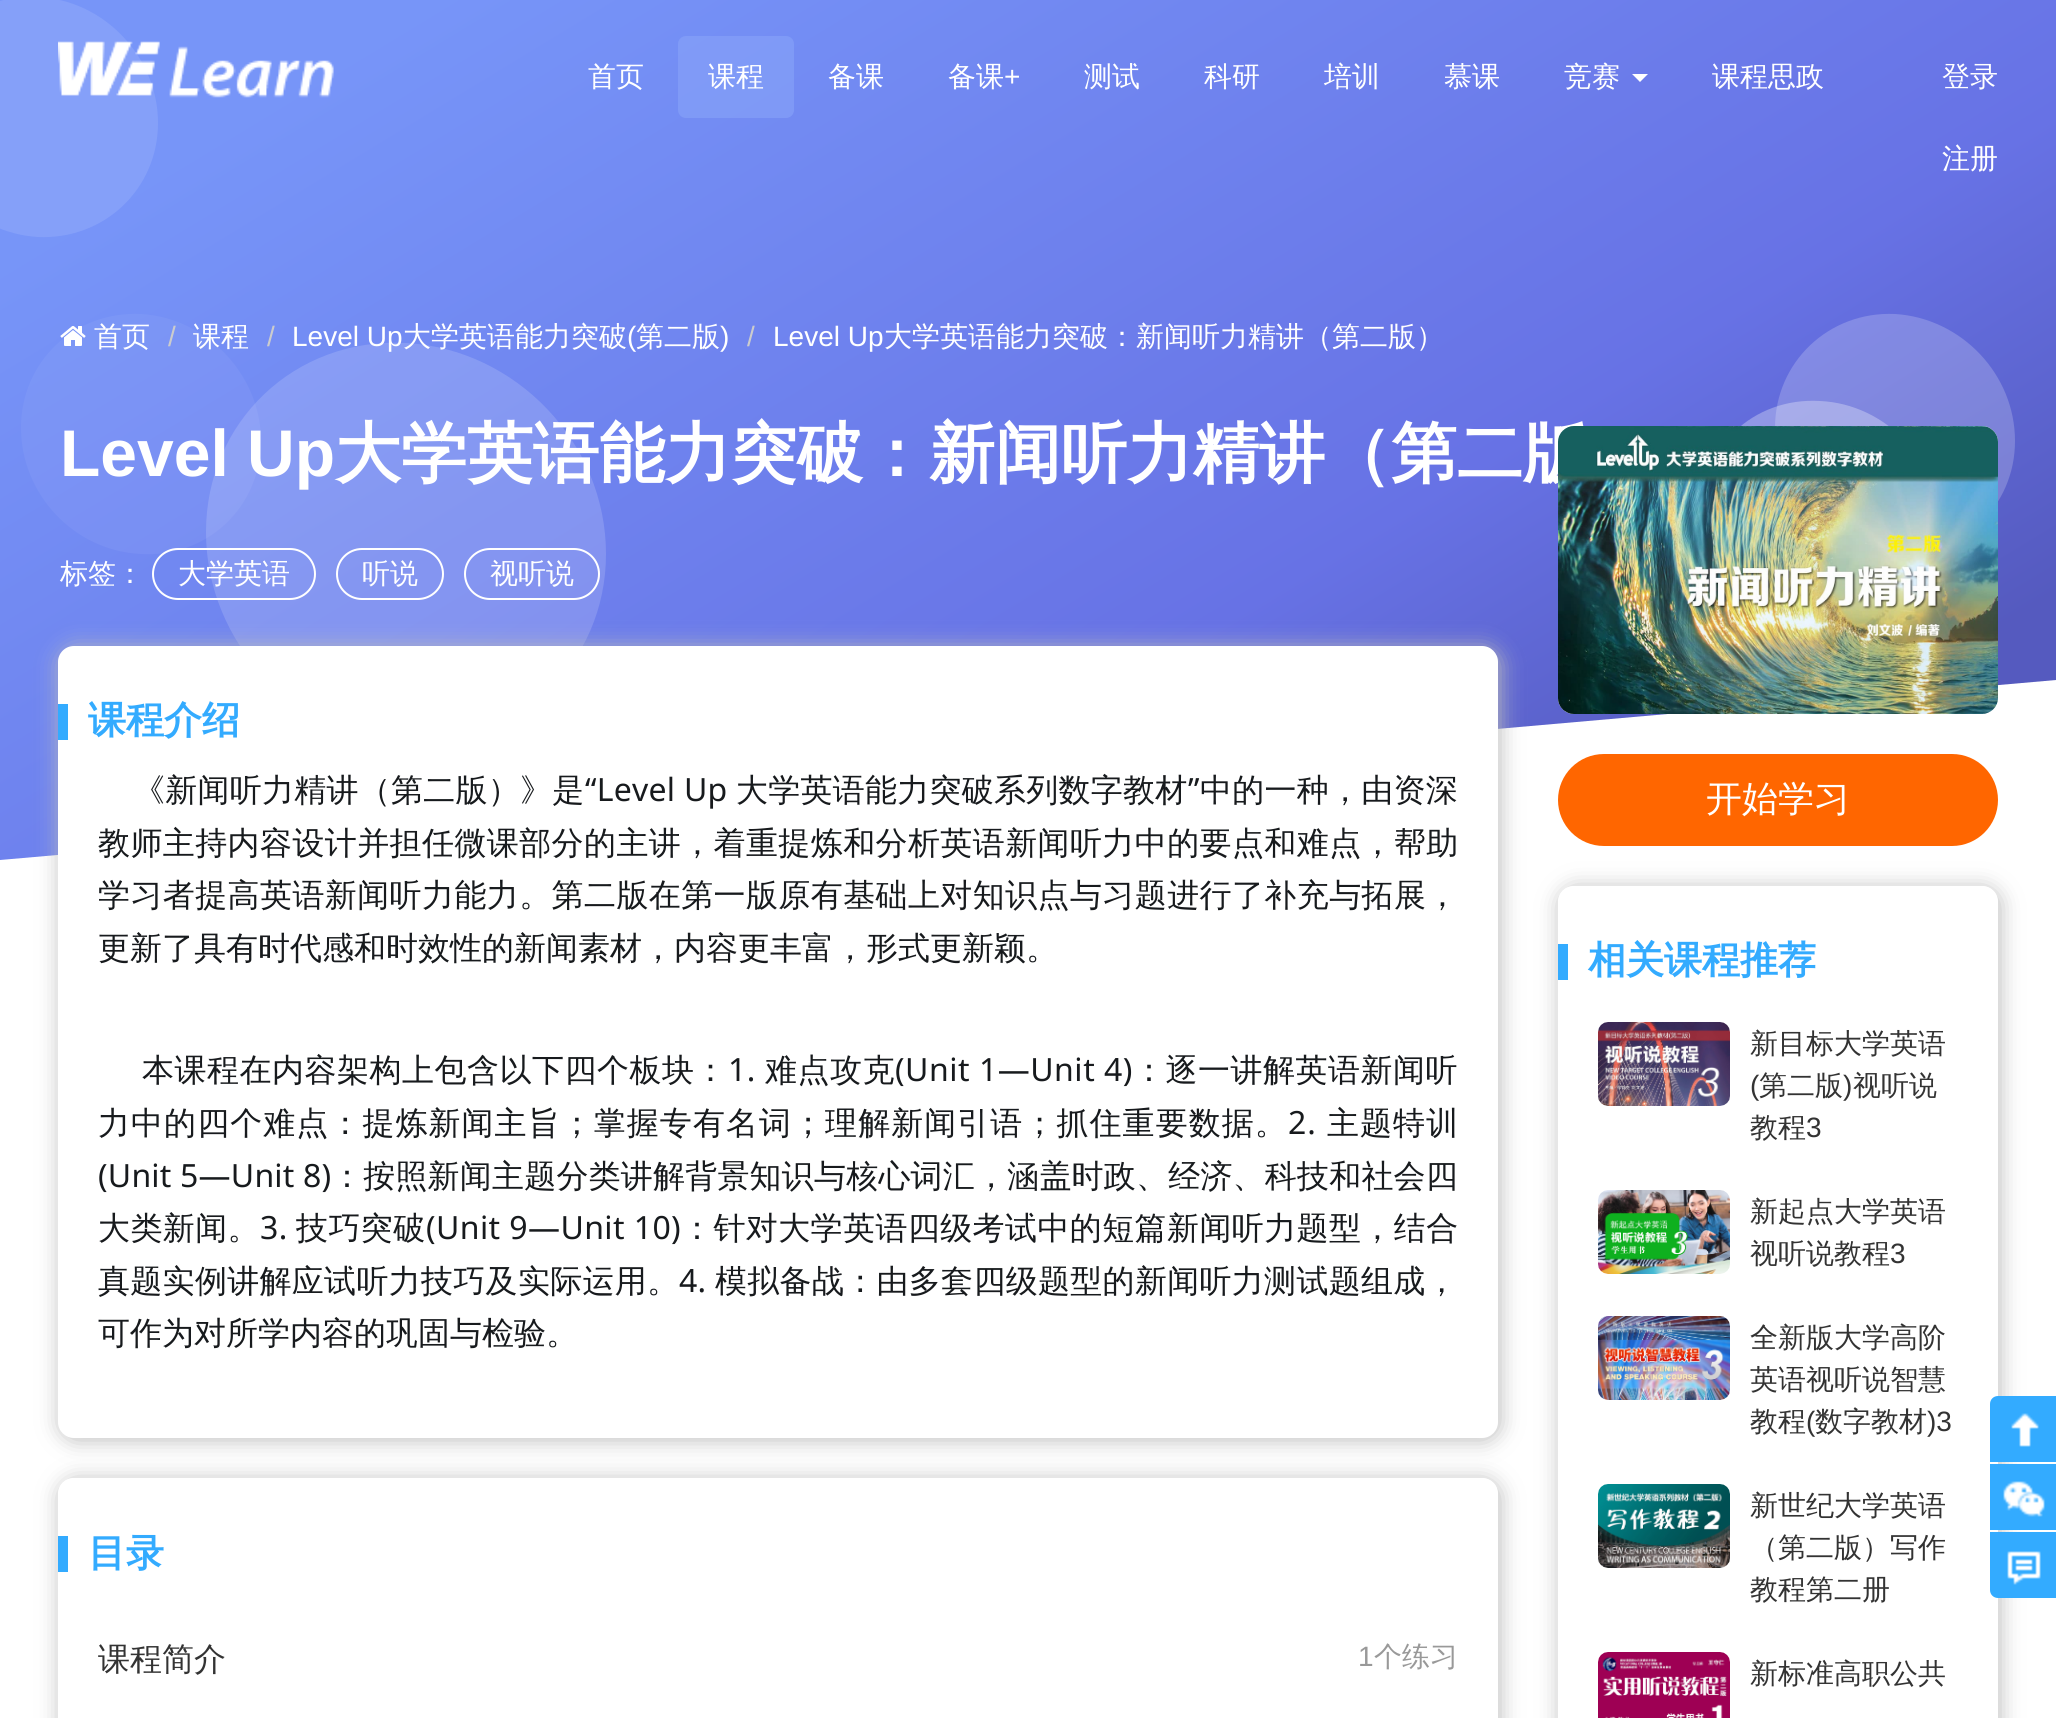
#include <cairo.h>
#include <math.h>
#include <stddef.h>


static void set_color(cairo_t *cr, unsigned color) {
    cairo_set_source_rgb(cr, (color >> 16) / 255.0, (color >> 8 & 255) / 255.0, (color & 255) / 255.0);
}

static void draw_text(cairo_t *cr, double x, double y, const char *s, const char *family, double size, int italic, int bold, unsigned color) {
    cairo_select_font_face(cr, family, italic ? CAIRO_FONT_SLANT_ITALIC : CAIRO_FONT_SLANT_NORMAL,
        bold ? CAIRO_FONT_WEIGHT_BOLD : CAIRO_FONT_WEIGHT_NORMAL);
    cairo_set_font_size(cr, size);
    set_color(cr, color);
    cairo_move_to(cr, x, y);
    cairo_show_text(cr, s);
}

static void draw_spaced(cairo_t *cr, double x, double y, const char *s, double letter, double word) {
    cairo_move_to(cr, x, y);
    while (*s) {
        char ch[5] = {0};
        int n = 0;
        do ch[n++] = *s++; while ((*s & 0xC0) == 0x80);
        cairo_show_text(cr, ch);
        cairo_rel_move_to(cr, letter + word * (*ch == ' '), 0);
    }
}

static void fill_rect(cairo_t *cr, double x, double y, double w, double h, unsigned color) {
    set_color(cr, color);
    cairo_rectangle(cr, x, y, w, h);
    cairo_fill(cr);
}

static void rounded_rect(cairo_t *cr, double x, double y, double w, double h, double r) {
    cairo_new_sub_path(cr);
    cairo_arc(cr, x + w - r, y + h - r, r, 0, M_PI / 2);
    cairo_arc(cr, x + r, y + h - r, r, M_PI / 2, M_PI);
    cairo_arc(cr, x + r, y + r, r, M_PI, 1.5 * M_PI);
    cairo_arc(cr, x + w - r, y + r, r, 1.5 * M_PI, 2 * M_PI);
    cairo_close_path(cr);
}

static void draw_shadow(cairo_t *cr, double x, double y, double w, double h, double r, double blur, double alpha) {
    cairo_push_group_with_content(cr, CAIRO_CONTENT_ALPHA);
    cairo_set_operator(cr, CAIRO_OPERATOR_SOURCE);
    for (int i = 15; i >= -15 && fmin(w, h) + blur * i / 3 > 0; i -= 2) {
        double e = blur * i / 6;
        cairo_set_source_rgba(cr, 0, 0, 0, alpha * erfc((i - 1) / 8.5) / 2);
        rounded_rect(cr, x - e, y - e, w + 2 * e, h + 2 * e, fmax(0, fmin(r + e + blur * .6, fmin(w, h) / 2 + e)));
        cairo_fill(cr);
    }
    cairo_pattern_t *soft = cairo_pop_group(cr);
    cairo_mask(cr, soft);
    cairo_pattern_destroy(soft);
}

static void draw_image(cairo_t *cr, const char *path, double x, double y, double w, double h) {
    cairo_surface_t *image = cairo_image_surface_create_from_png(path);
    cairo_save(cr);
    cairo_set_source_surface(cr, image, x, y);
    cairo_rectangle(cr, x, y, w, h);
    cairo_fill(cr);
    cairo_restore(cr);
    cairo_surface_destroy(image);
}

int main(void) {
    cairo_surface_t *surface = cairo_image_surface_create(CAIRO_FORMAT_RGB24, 2056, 1718);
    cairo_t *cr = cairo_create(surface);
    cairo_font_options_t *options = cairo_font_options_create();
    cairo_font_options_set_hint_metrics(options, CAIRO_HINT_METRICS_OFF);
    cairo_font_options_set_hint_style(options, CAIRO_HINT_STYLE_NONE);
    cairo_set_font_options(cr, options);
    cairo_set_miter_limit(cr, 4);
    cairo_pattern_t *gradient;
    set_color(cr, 0xFFFFFF);
    cairo_paint(cr);
    gradient = cairo_pattern_create_linear(585, -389, 1471, 1069);
    cairo_pattern_add_color_stop_rgba(gradient, 0.15, 0.467, 0.584, 0.973, 1);
    cairo_pattern_add_color_stop_rgba(gradient, 0.7, 0.404, 0.447, 0.898, 1);
    cairo_pattern_add_color_stop_rgba(gradient, 0.94, 0.333, 0.353, 0.749, 1);
    cairo_set_source(cr, gradient);
    cairo_pattern_destroy(gradient);
    cairo_new_path(cr);
    cairo_move_to(cr, 0, 0);
    cairo_line_to(cr, 2056, -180);
    cairo_line_to(cr, 2056, 680);
    cairo_line_to(cr, 0, 860);
    cairo_close_path(cr);
    cairo_fill(cr);
    set_color(cr, 0x85A0F9);
    cairo_new_path(cr);
    cairo_move_to(cr, 38, -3);
    cairo_curve_to(cr, 104, 0, 158, 57, 158, 123);
    cairo_curve_to(cr, 158, 189, 104, 240, 38, 237);
    cairo_curve_to(cr, -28, 233, -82, 177, -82, 110);
    cairo_curve_to(cr, -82, 44, -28, -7, 38, -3);
    cairo_close_path(cr);
    cairo_fill(cr);
    cairo_set_source_rgba(cr, 1, 1, 1, 0.05);
    cairo_new_path(cr);
    cairo_move_to(cr, 141, 314);
    cairo_curve_to(cr, 207, 318, 261, 375, 261, 441);
    cairo_curve_to(cr, 261, 507, 207, 558, 141, 554);
    cairo_curve_to(cr, 74, 551, 21, 494, 21, 428);
    cairo_curve_to(cr, 21, 362, 74, 311, 141, 314);
    cairo_close_path(cr);
    cairo_fill(cr);
    cairo_set_source_rgba(cr, 1, 1, 1, 0.15);
    cairo_new_path(cr);
    cairo_move_to(cr, 406, 343);
    cairo_curve_to(cr, 516, 349, 606, 443, 606, 554);
    cairo_curve_to(cr, 606, 664, 516, 749, 406, 743);
    cairo_curve_to(cr, 295, 737, 206, 643, 206, 532);
    cairo_curve_to(cr, 206, 422, 295, 337, 406, 343);
    cairo_close_path(cr);
    cairo_fill(cr);
    cairo_set_source_rgba(cr, 1, 1, 1, 0.3);
    cairo_new_path(cr);
    cairo_move_to(cr, 1820, 401);
    cairo_curve_to(cr, 1886, 404, 1940, 461, 1940, 527);
    cairo_curve_to(cr, 1940, 593, 1886, 644, 1820, 641);
    cairo_curve_to(cr, 1753, 637, 1700, 581, 1700, 514);
    cairo_curve_to(cr, 1700, 448, 1753, 397, 1820, 401);
    cairo_close_path(cr);
    cairo_fill(cr);
    cairo_set_source_rgba(cr, 1, 1, 1, 0.2);
    cairo_new_path(cr);
    cairo_move_to(cr, 1895, 314);
    cairo_curve_to(cr, 1961, 318, 2015, 374, 2015, 441);
    cairo_curve_to(cr, 2015, 507, 1961, 558, 1895, 554);
    cairo_curve_to(cr, 1829, 551, 1775, 494, 1775, 428);
    cairo_curve_to(cr, 1775, 362, 1829, 311, 1895, 314);
    cairo_close_path(cr);
    cairo_fill(cr);
    draw_image(cr, "assets/img1.png", 58, 41, 276, 57);
    draw_text(cr, 588, 86, "首页", "WenQuanYi Zen Hei Medium", 28, 0, 0, 0xFFFFFF);
    cairo_set_source_rgba(cr, 0.522, 0.627, 0.976, 0.7);
    rounded_rect(cr, 678, 36, 116, 82, 8);
    cairo_fill(cr);
    draw_text(cr, 708, 86, "课程", "WenQuanYi Zen Hei Medium", 28, 0, 0, 0xFFFFFF);
    draw_text(cr, 828, 86, "备课", "WenQuanYi Zen Hei Medium", 28, 0, 0, 0xFFFFFF);
    draw_text(cr, 948, 86, "备课", "WenQuanYi Zen Hei Medium", 28, 0, 0, 0xFFFFFF);
    draw_text(cr, 1004, 86, "+", "Liberation Sans", 28, 0, 0, 0xFFFFFF);
    draw_text(cr, 1084, 86, "测试", "WenQuanYi Zen Hei Medium", 28, 0, 0, 0xFFFFFF);
    draw_text(cr, 1204, 86, "科研", "WenQuanYi Zen Hei Medium", 28, 0, 0, 0xFFFFFF);
    draw_text(cr, 1324, 86, "培训", "WenQuanYi Zen Hei Medium", 28, 0, 0, 0xFFFFFF);
    draw_text(cr, 1444, 86, "慕课", "WenQuanYi Zen Hei Medium", 28, 0, 0, 0xFFFFFF);
    draw_text(cr, 1564, 86, "竞赛", "WenQuanYi Zen Hei Medium", 28, 0, 0, 0xFFFFFF);
    cairo_new_path(cr);
    cairo_move_to(cr, 1632, 74);
    cairo_line_to(cr, 1648, 74);
    cairo_line_to(cr, 1640, 82);
    cairo_close_path(cr);
    cairo_fill(cr);
    draw_text(cr, 1712, 86, "课程思政", "WenQuanYi Zen Hei Medium", 28, 0, 0, 0xFFFFFF);
    draw_text(cr, 1942, 86, "登录", "WenQuanYi Zen Hei Medium", 28, 0, 0, 0xFFFFFF);
    draw_text(cr, 1942, 168, "注册", "WenQuanYi Zen Hei Medium", 28, 0, 0, 0xFFFFFF);
    draw_image(cr, "assets/img2.png", 60, 326, 26, 20);
    draw_text(cr, 94, 346, "首页", "WenQuanYi Zen Hei Medium", 28, 0, 0, 0xFFFFFF);
    draw_text(cr, 168, 346, "/", "Liberation Sans", 28, 0, 0, 0xCCCCCC);
    draw_text(cr, 193, 346, "课程", "WenQuanYi Zen Hei Medium", 28, 0, 0, 0xFFFFFF);
    draw_text(cr, 267, 346, "/", "Liberation Sans", 28, 0, 0, 0xCCCCCC);
    draw_text(cr, 292, 346, "Level Up", "Liberation Sans", 28, 0, 0, 0xFFFFFF);
    draw_text(cr, 403, 346, "大学英语能力突破", "WenQuanYi Zen Hei Medium", 28, 0, 0, 0xFFFFFF);
    draw_text(cr, 627, 346, "(", "Liberation Sans", 28, 0, 0, 0xFFFFFF);
    draw_text(cr, 636, 346, "第二版", "WenQuanYi Zen Hei Medium", 28, 0, 0, 0xFFFFFF);
    draw_text(cr, 720, 346, ")", "Liberation Sans", 28, 0, 0, 0xFFFFFF);
    draw_text(cr, 747, 346, "/", "Liberation Sans", 28, 0, 0, 0xCCCCCC);
    draw_text(cr, 773, 346, "Level Up", "Liberation Sans", 28, 0, 0, 0xFFFFFF);
    draw_text(cr, 884, 346, "大学英语能力突破：新闻听力精讲（第二版）", "WenQuanYi Zen Hei Medium", 28, 0, 0, 0xFFFFFF);
    draw_text(cr, 60, 476, "Level Up", "Liberation Sans", 66, 0, 1, 0xFFFFFF);
    draw_text(cr, 335, 476, "大学英语能力突破：新闻听力精讲（第二版", "WenQuanYi Zen Hei", 66, 0, 1, 0xFFFFFF);
    draw_text(cr, 60, 583, "标签：", "WenQuanYi Zen Hei Medium", 28, 0, 0, 0xFFFFFF);
    rounded_rect(cr, 153, 549, 162, 50, 25);
    cairo_stroke(cr);
    draw_text(cr, 178, 583, "大学英语", "WenQuanYi Zen Hei Medium", 28, 0, 0, 0xFFFFFF);
    rounded_rect(cr, 337, 549, 106, 50, 25);
    cairo_stroke(cr);
    draw_text(cr, 362, 583, "听说", "WenQuanYi Zen Hei Medium", 28, 0, 0, 0xFFFFFF);
    rounded_rect(cr, 465, 549, 134, 50, 25);
    cairo_stroke(cr);
    draw_text(cr, 490, 583, "视听说", "WenQuanYi Zen Hei Medium", 28, 0, 0, 0xFFFFFF);
    set_color(cr, 0xBBBBBB);
    draw_shadow(cr, 60, 648, 1440, 792, 16, 11, 1);
    set_color(cr, 0xFFFFFF);
    rounded_rect(cr, 58, 646, 1440, 792, 16);
    cairo_fill(cr);
    fill_rect(cr, 58, 704, 10, 36, 0x33ABFF);
    draw_text(cr, 88, 733, "课程介绍", "WenQuanYi Zen Hei", 38, 0, 1, 0x33ABFF);
    cairo_select_font_face(cr, "WenQuanYi Zen Hei Medium", CAIRO_FONT_SLANT_NORMAL, CAIRO_FONT_WEIGHT_NORMAL);
    cairo_set_font_size(cr, 32);
    set_color(cr, 0x171A1D);
    draw_spaced(cr, 133, 801, "《新闻听力精讲（第二版）》是", 0.25, 0);
    cairo_select_font_face(cr, "Noto Sans", CAIRO_FONT_SLANT_NORMAL, CAIRO_FONT_WEIGHT_NORMAL);
    draw_spaced(cr, 585, 801, "“Level Up", 0.25, 0);
    cairo_select_font_face(cr, "WenQuanYi Zen Hei Medium", CAIRO_FONT_SLANT_NORMAL, CAIRO_FONT_WEIGHT_NORMAL);
    draw_spaced(cr, 736, 801, "大学英语能力突破系列数字教材", 0.25, 0);
    cairo_select_font_face(cr, "Noto Sans", CAIRO_FONT_SLANT_NORMAL, CAIRO_FONT_WEIGHT_NORMAL);
    draw_spaced(cr, 1188, 801, "”", 0.25, 0);
    cairo_select_font_face(cr, "WenQuanYi Zen Hei Medium", CAIRO_FONT_SLANT_NORMAL, CAIRO_FONT_WEIGHT_NORMAL);
    draw_spaced(cr, 1200, 801, "中的一种，由资深", 0.25, 0);
    draw_spaced(cr, 98, 854, "教师主持内容设计并担任微课部分的主讲，着重提炼和分析英语新闻听力中的要点和难点，帮助", 0.4, 0);
    draw_spaced(cr, 98, 906, "学习者提高英语新闻听力能力。第二版在第一版原有基础上对知识点与习题进行了补充与拓展，", 0.4, 0);
    draw_text(cr, 98, 959, "更新了具有时代感和时效性的新闻素材，内容更丰富，形式更新颖。", "WenQuanYi Zen Hei Medium", 32, 0, 0, 0x171A1D);
    draw_spaced(cr, 142, 1081, "本课程在内容架构上包含以下四个板块：", 0.5, 0);
    cairo_select_font_face(cr, "Noto Sans", CAIRO_FONT_SLANT_NORMAL, CAIRO_FONT_WEIGHT_NORMAL);
    draw_spaced(cr, 728, 1081, "1.", 0.5, 0);
    cairo_select_font_face(cr, "WenQuanYi Zen Hei Medium", CAIRO_FONT_SLANT_NORMAL, CAIRO_FONT_WEIGHT_NORMAL);
    draw_spaced(cr, 765, 1081, "难点攻克", 0.5, 0);
    cairo_select_font_face(cr, "Noto Sans", CAIRO_FONT_SLANT_NORMAL, CAIRO_FONT_WEIGHT_NORMAL);
    draw_spaced(cr, 895, 1081, "(Unit 1—Unit 4)", 0.5, 0);
    cairo_select_font_face(cr, "WenQuanYi Zen Hei Medium", CAIRO_FONT_SLANT_NORMAL, CAIRO_FONT_WEIGHT_NORMAL);
    draw_spaced(cr, 1133, 1081, "：逐一讲解英语新闻听", 0.5, 0);
    draw_spaced(cr, 98, 1134, "力中的四个难点：提炼新闻主旨；掌握专有名词；理解新闻引语；抓住重要数据。", 1.05, 0);
    cairo_select_font_face(cr, "Noto Sans", CAIRO_FONT_SLANT_NORMAL, CAIRO_FONT_WEIGHT_NORMAL);
    draw_spaced(cr, 1288, 1134, "2.", 1.05, 0);
    cairo_select_font_face(cr, "WenQuanYi Zen Hei Medium", CAIRO_FONT_SLANT_NORMAL, CAIRO_FONT_WEIGHT_NORMAL);
    draw_spaced(cr, 1327, 1134, "主题特训", 1.05, 0);
    cairo_select_font_face(cr, "Noto Sans", CAIRO_FONT_SLANT_NORMAL, CAIRO_FONT_WEIGHT_NORMAL);
    draw_spaced(cr, 98, 1187, "(Unit 5—Unit 8)", 0.2, 0);
    cairo_select_font_face(cr, "WenQuanYi Zen Hei Medium", CAIRO_FONT_SLANT_NORMAL, CAIRO_FONT_WEIGHT_NORMAL);
    draw_spaced(cr, 331, 1187, "：按照新闻主题分类讲解背景知识与核心词汇，涵盖时政、经济、科技和社会四", 0.2, 0);
    draw_spaced(cr, 98, 1239, "大类新闻。", 0.4, 0);
    cairo_select_font_face(cr, "Noto Sans", CAIRO_FONT_SLANT_NORMAL, CAIRO_FONT_WEIGHT_NORMAL);
    draw_spaced(cr, 260, 1239, "3.", 0.4, 0);
    cairo_select_font_face(cr, "WenQuanYi Zen Hei Medium", CAIRO_FONT_SLANT_NORMAL, CAIRO_FONT_WEIGHT_NORMAL);
    draw_spaced(cr, 296, 1239, "技巧突破", 0.4, 0);
    cairo_select_font_face(cr, "Noto Sans", CAIRO_FONT_SLANT_NORMAL, CAIRO_FONT_WEIGHT_NORMAL);
    draw_spaced(cr, 426, 1239, "(Unit 9—Unit 10)", 0.4, 0);
    cairo_select_font_face(cr, "WenQuanYi Zen Hei Medium", CAIRO_FONT_SLANT_NORMAL, CAIRO_FONT_WEIGHT_NORMAL);
    draw_spaced(cr, 681, 1239, "：针对大学英语四级考试中的短篇新闻听力题型，结合", 0.4, 0);
    draw_spaced(cr, 98, 1292, "真题实例讲解应试听力技巧及实际运用。", 0.3, 0);
    cairo_select_font_face(cr, "Noto Sans", CAIRO_FONT_SLANT_NORMAL, CAIRO_FONT_WEIGHT_NORMAL);
    draw_spaced(cr, 679, 1292, "4.", 0.3, 0);
    cairo_select_font_face(cr, "WenQuanYi Zen Hei Medium", CAIRO_FONT_SLANT_NORMAL, CAIRO_FONT_WEIGHT_NORMAL);
    draw_spaced(cr, 715, 1292, "模拟备战：由多套四级题型的新闻听力测试题组成，", 0.3, 0);
    draw_text(cr, 98, 1344, "可作为对所学内容的巩固与检验。", "WenQuanYi Zen Hei Medium", 32, 0, 0, 0x171A1D);
    cairo_save(cr);
    cairo_set_fill_rule(cr, CAIRO_FILL_RULE_EVEN_ODD);
    cairo_new_path(cr);
    cairo_move_to(cr, 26, 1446);
    cairo_line_to(cr, 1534, 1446);
    cairo_line_to(cr, 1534, 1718);
    cairo_line_to(cr, 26, 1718);
    cairo_close_path(cr);
    cairo_move_to(cr, 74, 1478);
    cairo_line_to(cr, 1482, 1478);
    cairo_curve_to(cr, 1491, 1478, 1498, 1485, 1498, 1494);
    cairo_line_to(cr, 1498, 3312);
    cairo_curve_to(cr, 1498, 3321, 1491, 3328, 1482, 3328);
    cairo_line_to(cr, 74, 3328);
    cairo_curve_to(cr, 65, 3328, 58, 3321, 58, 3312);
    cairo_line_to(cr, 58, 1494);
    cairo_curve_to(cr, 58, 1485, 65, 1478, 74, 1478);
    cairo_close_path(cr);
    cairo_clip(cr);
    set_color(cr, 0xBBBBBB);
    draw_shadow(cr, 60, 1480, 1440, 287, 16, 11, 1);
    cairo_restore(cr);
    fill_rect(cr, 58, 1536, 10, 36, 0x33ABFF);
    draw_text(cr, 88, 1566, "目录", "WenQuanYi Zen Hei", 38, 0, 1, 0x33ABFF);
    draw_text(cr, 98, 1670, "课程简介", "WenQuanYi Zen Hei Medium", 32, 0, 0, 0x333333);
    draw_text(cr, 1358, 1666, "1", "Liberation Sans", 28, 0, 0, 0x999999);
    draw_text(cr, 1374, 1666, "个练习", "WenQuanYi Zen Hei Medium", 28, 0, 0, 0x999999);
    set_color(cr, 0xFFFFFF);
    rounded_rect(cr, 1558, 426, 440, 288, 16);
    cairo_fill(cr);
    draw_image(cr, "assets/img3.png", 1558, 426, 440, 288);
    set_color(cr, 0xFF6600);
    rounded_rect(cr, 1558, 754, 440, 92, 46);
    cairo_fill(cr);
    draw_text(cr, 1706, 811, "开始学习", "WenQuanYi Zen Hei Medium", 36, 0, 0, 0xFFFFFF);
    cairo_save(cr);
    cairo_set_fill_rule(cr, CAIRO_FILL_RULE_EVEN_ODD);
    cairo_new_path(cr);
    cairo_move_to(cr, 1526, 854);
    cairo_line_to(cr, 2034, 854);
    cairo_line_to(cr, 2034, 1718);
    cairo_line_to(cr, 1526, 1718);
    cairo_close_path(cr);
    cairo_move_to(cr, 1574, 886);
    cairo_line_to(cr, 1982, 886);
    cairo_curve_to(cr, 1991, 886, 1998, 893, 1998, 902);
    cairo_line_to(cr, 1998, 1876);
    cairo_curve_to(cr, 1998, 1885, 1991, 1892, 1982, 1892);
    cairo_line_to(cr, 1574, 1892);
    cairo_curve_to(cr, 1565, 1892, 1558, 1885, 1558, 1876);
    cairo_line_to(cr, 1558, 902);
    cairo_curve_to(cr, 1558, 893, 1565, 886, 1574, 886);
    cairo_close_path(cr);
    cairo_clip(cr);
    set_color(cr, 0xBBBBBB);
    draw_shadow(cr, 1560, 888, 440, 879, 16, 11, 1);
    cairo_restore(cr);
    fill_rect(cr, 1558, 944, 10, 36, 0x33ABFF);
    draw_text(cr, 1588, 973, "相关课程推荐", "WenQuanYi Zen Hei", 38, 0, 1, 0x33ABFF);
    draw_image(cr, "assets/img4.png", 1598, 1022, 132, 84);
    draw_text(cr, 1750, 1053, "新目标大学英语", "WenQuanYi Zen Hei Medium", 28, 0, 0, 0x333333);
    draw_text(cr, 1750, 1095, "(", "Liberation Sans", 28, 0, 0, 0x333333);
    draw_text(cr, 1759, 1095, "第二版", "WenQuanYi Zen Hei Medium", 28, 0, 0, 0x333333);
    draw_text(cr, 1843, 1095, ")", "Liberation Sans", 28, 0, 0, 0x333333);
    draw_text(cr, 1853, 1095, "视听说", "WenQuanYi Zen Hei Medium", 28, 0, 0, 0x333333);
    draw_text(cr, 1750, 1137, "教程", "WenQuanYi Zen Hei Medium", 28, 0, 0, 0x333333);
    draw_text(cr, 1806, 1137, "3", "Liberation Sans", 28, 0, 0, 0x333333);
    draw_image(cr, "assets/img5.png", 1598, 1190, 132, 84);
    draw_text(cr, 1750, 1221, "新起点大学英语", "WenQuanYi Zen Hei Medium", 28, 0, 0, 0x333333);
    draw_text(cr, 1750, 1263, "视听说教程", "WenQuanYi Zen Hei Medium", 28, 0, 0, 0x333333);
    draw_text(cr, 1890, 1263, "3", "Liberation Sans", 28, 0, 0, 0x333333);
    draw_image(cr, "assets/img6.png", 1598, 1316, 132, 84);
    draw_text(cr, 1750, 1347, "全新版大学高阶", "WenQuanYi Zen Hei Medium", 28, 0, 0, 0x333333);
    draw_text(cr, 1750, 1389, "英语视听说智慧", "WenQuanYi Zen Hei Medium", 28, 0, 0, 0x333333);
    draw_text(cr, 1750, 1431, "教程", "WenQuanYi Zen Hei Medium", 28, 0, 0, 0x333333);
    draw_text(cr, 1806, 1431, "(", "Liberation Sans", 28, 0, 0, 0x333333);
    draw_text(cr, 1815, 1431, "数字教材", "WenQuanYi Zen Hei Medium", 28, 0, 0, 0x333333);
    draw_text(cr, 1927, 1431, ")3", "Liberation Sans", 28, 0, 0, 0x333333);
    draw_image(cr, "assets/img7.png", 1598, 1484, 132, 84);
    draw_text(cr, 1750, 1515, "新世纪大学英语", "WenQuanYi Zen Hei Medium", 28, 0, 0, 0x333333);
    draw_text(cr, 1750, 1557, "（第二版）写作", "WenQuanYi Zen Hei Medium", 28, 0, 0, 0x333333);
    draw_text(cr, 1750, 1599, "教程第二册", "WenQuanYi Zen Hei Medium", 28, 0, 0, 0x333333);
    draw_image(cr, "assets/img8.png", 1598, 1652, 132, 66);
    draw_text(cr, 1750, 1683, "新标准高职公共", "WenQuanYi Zen Hei Medium", 28, 0, 0, 0x333333);
    set_color(cr, 0x33ABFF);
    cairo_new_path(cr);
    cairo_move_to(cr, 1998, 1396);
    cairo_line_to(cr, 2056, 1396);
    cairo_line_to(cr, 2056, 1462);
    cairo_line_to(cr, 1990, 1462);
    cairo_line_to(cr, 1990, 1404);
    cairo_curve_to(cr, 1990, 1399.5, 1993.5, 1396, 1998, 1396);
    cairo_close_path(cr);
    cairo_fill(cr);
    draw_image(cr, "assets/img9.png", 2011, 1413, 28, 34);
    fill_rect(cr, 1990, 1464, 66, 66, 0x33ABFF);
    draw_image(cr, "assets/img10.png", 2003, 1481, 42, 36);
    cairo_new_path(cr);
    cairo_move_to(cr, 1990, 1532);
    cairo_line_to(cr, 2056, 1532);
    cairo_line_to(cr, 2056, 1598);
    cairo_line_to(cr, 1998, 1598);
    cairo_curve_to(cr, 1993.5, 1598, 1990, 1594.5, 1990, 1590);
    cairo_close_path(cr);
    cairo_fill(cr);
    draw_image(cr, "assets/img11.png", 2007, 1551, 34, 34);
    cairo_surface_write_to_png(surface, "output.png");
    cairo_font_options_destroy(options);
    cairo_destroy(cr);
    cairo_surface_destroy(surface);
    return 0;
}
